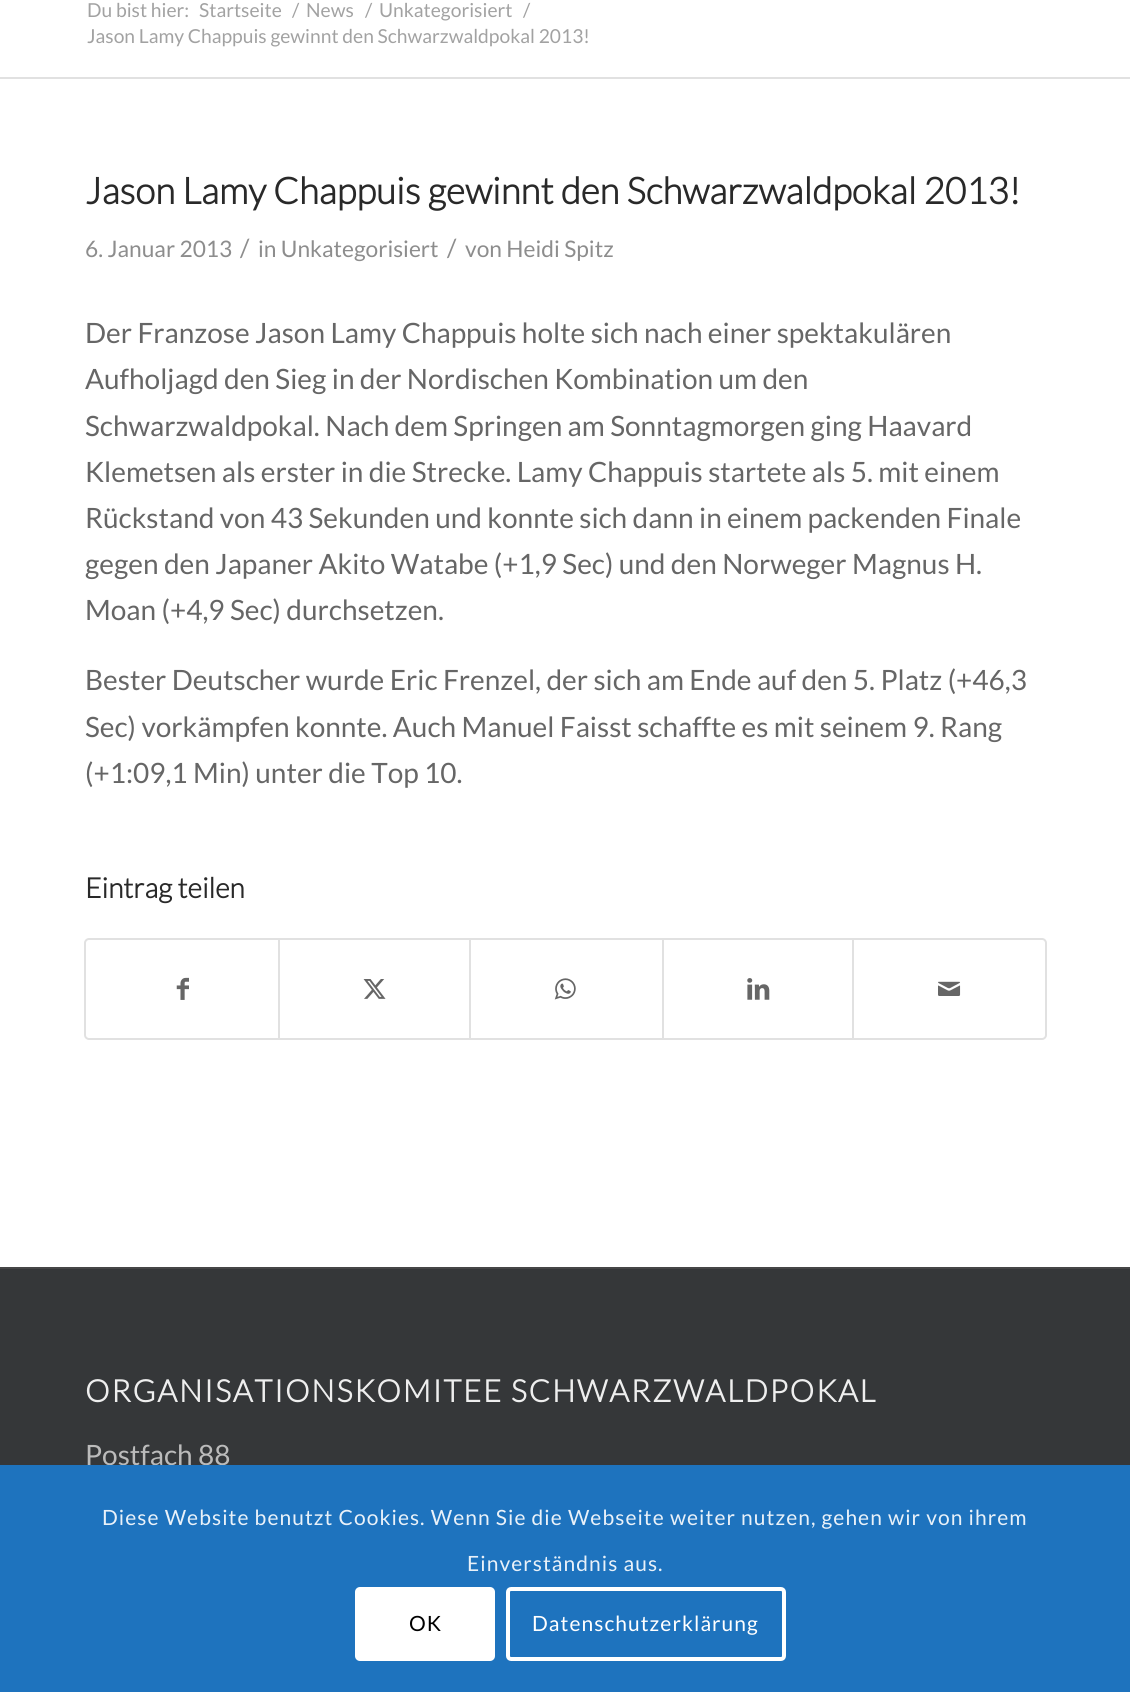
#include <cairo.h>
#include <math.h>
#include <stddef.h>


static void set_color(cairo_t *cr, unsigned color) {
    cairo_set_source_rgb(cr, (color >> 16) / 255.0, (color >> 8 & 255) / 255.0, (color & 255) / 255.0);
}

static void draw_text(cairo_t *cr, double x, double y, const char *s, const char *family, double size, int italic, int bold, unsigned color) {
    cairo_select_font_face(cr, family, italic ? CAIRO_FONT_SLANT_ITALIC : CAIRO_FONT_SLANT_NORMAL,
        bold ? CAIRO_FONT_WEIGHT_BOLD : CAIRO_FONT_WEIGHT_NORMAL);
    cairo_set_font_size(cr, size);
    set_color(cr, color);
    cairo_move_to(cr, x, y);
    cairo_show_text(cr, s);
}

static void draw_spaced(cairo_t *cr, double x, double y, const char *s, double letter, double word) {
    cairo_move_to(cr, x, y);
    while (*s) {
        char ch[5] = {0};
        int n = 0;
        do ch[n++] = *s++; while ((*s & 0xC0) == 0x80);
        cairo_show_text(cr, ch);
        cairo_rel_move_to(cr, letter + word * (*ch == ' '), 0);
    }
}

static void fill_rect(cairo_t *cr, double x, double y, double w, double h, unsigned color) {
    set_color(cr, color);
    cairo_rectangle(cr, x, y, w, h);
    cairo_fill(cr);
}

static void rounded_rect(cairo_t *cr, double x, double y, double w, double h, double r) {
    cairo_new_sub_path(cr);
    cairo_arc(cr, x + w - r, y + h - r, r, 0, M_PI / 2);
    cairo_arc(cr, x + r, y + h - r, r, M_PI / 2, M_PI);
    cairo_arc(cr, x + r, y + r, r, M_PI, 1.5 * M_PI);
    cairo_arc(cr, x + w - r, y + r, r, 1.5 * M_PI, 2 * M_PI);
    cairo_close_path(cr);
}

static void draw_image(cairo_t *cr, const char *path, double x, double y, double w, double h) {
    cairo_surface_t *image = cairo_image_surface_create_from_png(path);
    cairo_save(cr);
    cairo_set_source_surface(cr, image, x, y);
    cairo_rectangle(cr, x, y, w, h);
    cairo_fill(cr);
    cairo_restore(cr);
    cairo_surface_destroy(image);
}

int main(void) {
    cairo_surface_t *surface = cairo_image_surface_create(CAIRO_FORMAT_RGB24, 1130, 1692);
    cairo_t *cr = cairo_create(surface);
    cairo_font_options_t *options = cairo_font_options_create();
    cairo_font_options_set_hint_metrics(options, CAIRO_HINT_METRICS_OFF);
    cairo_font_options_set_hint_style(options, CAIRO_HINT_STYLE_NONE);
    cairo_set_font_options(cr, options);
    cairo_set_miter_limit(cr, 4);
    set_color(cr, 0xFFFFFF);
    cairo_paint(cr);
    draw_text(cr, 87, 17, "Du bist hier:", "Lato", 19.25, 0, 0, 0xA2A2A2);
    draw_text(cr, 199, 17, "Startseite", "Lato", 19.25, 0, 0, 0xA2A2A2);
    draw_text(cr, 292, 17, "/", "Lato", 19.25, 0, 0, 0xA2A2A2);
    draw_text(cr, 306, 17, "News", "Lato", 19.25, 0, 0, 0xA2A2A2);
    draw_text(cr, 365, 17, "/", "Lato", 19.25, 0, 0, 0xA2A2A2);
    draw_text(cr, 379, 17, "Unkategorisiert", "Lato", 19.25, 0, 0, 0xA2A2A2);
    draw_text(cr, 523, 17, "/", "Lato", 19.25, 0, 0, 0xA2A2A2);
    draw_text(cr, 87, 43, "Jason Lamy Chappuis gewinnt den Schwarzwaldpokal 2013!", "Lato", 19.25, 0, 0, 0xA2A2A2);
    fill_rect(cr, 0, 77, 1130, 2, 0xE1E1E1);
    draw_text(cr, 85, 204, "Jason Lamy Chappuis gewinnt den Schwarzwaldpokal 2013!", "Lato", 36.75, 0, 1, 0x292929);
    draw_text(cr, 85, 257, "6. Januar 2013", "Lato", 22.75, 0, 0, 0x8D8D8D);
    draw_text(cr, 240, 257, "/", "Lato", 25, 0, 0, 0x8D8D8D);
    draw_text(cr, 258, 257, "in Unkategorisiert", "Lato", 22.75, 0, 0, 0x8D8D8D);
    draw_text(cr, 447, 257, "/", "Lato", 25, 0, 0, 0x8D8D8D);
    draw_text(cr, 465, 257, "von Heidi Spitz", "Lato", 22.75, 0, 0, 0x8D8D8D);
    draw_text(cr, 85, 343, "Der Franzose Jason Lamy Chappuis holte sich nach einer spektakulären", "Lato", 28, 0, 0, 0x666666);
    draw_text(cr, 85, 389, "Aufholjagd den Sieg in der Nordischen Kombination um den", "Lato", 28, 0, 0, 0x666666);
    draw_text(cr, 85, 436, "Schwarzwaldpokal. Nach dem Springen am Sonntagmorgen ging Haavard", "Lato", 28, 0, 0, 0x666666);
    draw_text(cr, 85, 482, "Klemetsen als erster in die Strecke. Lamy Chappuis startete als 5. mit einem", "Lato", 28, 0, 0, 0x666666);
    draw_text(cr, 85, 528, "Rückstand von 43 Sekunden und konnte sich dann in einem packenden Finale", "Lato", 28, 0, 0, 0x666666);
    draw_text(cr, 85, 574, "gegen den Japaner Akito Watabe (+1,9 Sec) und den Norweger Magnus H.", "Lato", 28, 0, 0, 0x666666);
    draw_text(cr, 85, 620, "Moan (+4,9 Sec) durchsetzen.", "Lato", 28, 0, 0, 0x666666);
    draw_text(cr, 85, 690, "Bester Deutscher wurde Eric Frenzel, der sich am Ende auf den 5. Platz (+46,3", "Lato", 28, 0, 0, 0x666666);
    draw_text(cr, 85, 737, "Sec) vorkämpfen konnte. Auch Manuel Faisst schaffte es mit seinem 9. Rang", "Lato", 28, 0, 0, 0x666666);
    draw_text(cr, 85, 783, "(+1:09,1 Min) unter die Top 10.", "Lato", 28, 0, 0, 0x666666);
    draw_text(cr, 85, 898, "Eintrag teilen", "Lato", 28, 0, 1, 0x292929);
    rounded_rect(cr, 85, 939, 961, 100, 4);
    set_color(cr, 0xE1E1E1);
    cairo_stroke(cr);
    draw_image(cr, "assets/img1.png", 176, 977, 13, 23);
    fill_rect(cr, 278, 940, 2, 98, 0xE1E1E1);
    draw_image(cr, "assets/img2.png", 363, 979, 23, 20);
    fill_rect(cr, 469, 940, 2, 98, 0xE1E1E1);
    draw_image(cr, "assets/img3.png", 554, 978, 22, 22);
    fill_rect(cr, 662, 940, 2, 98, 0xE1E1E1);
    draw_image(cr, "assets/img4.png", 747, 978, 23, 22);
    fill_rect(cr, 852, 940, 2, 98, 0xE1E1E1);
    draw_image(cr, "assets/img5.png", 938, 981, 23, 15);
    fill_rect(cr, 0, 1269, 1130, 196, 0x353739);
    fill_rect(cr, 0, 1267, 1130, 2, 0x464647);
    cairo_set_font_size(cr, 30.8);
    set_color(cr, 0xEEEEEE);
    draw_spaced(cr, 85, 1402, "ORGANISATIONSKOMITEE SCHWARZWALDPOKAL", 1.75, 0);
    draw_text(cr, 85, 1465, "Postfach 88", "Lato", 28, 0, 0, 0xBBBBBB);
    fill_rect(cr, 0, 1465, 1130, 227, 0x1E73BE);
    cairo_set_font_size(cr, 21);
    set_color(cr, 0xE9F1F9);
    draw_spaced(cr, 102, 1525, "Diese Website benutzt Cookies. Wenn Sie die Webseite weiter nutzen, gehen wir von ihrem", 1.05, 0);
    draw_spaced(cr, 467, 1571, "Einverständnis aus.", 1.05, 0);
    set_color(cr, 0xFFFFFF);
    rounded_rect(cr, 355, 1587, 140, 74, 5);
    cairo_fill(cr);
    set_color(cr, 0x000000);
    draw_spaced(cr, 409, 1631, "OK", 1.05, 0);
    rounded_rect(cr, 508, 1589, 276, 70, 3);
    set_color(cr, 0xFFFFFF);
    cairo_set_line_width(cr, 4);
    cairo_stroke(cr);
    draw_spaced(cr, 532, 1631, "Datenschutzerklärung", 1.05, 0);
    cairo_surface_write_to_png(surface, "output.png");
    cairo_font_options_destroy(options);
    cairo_destroy(cr);
    cairo_surface_destroy(surface);
    return 0;
}
